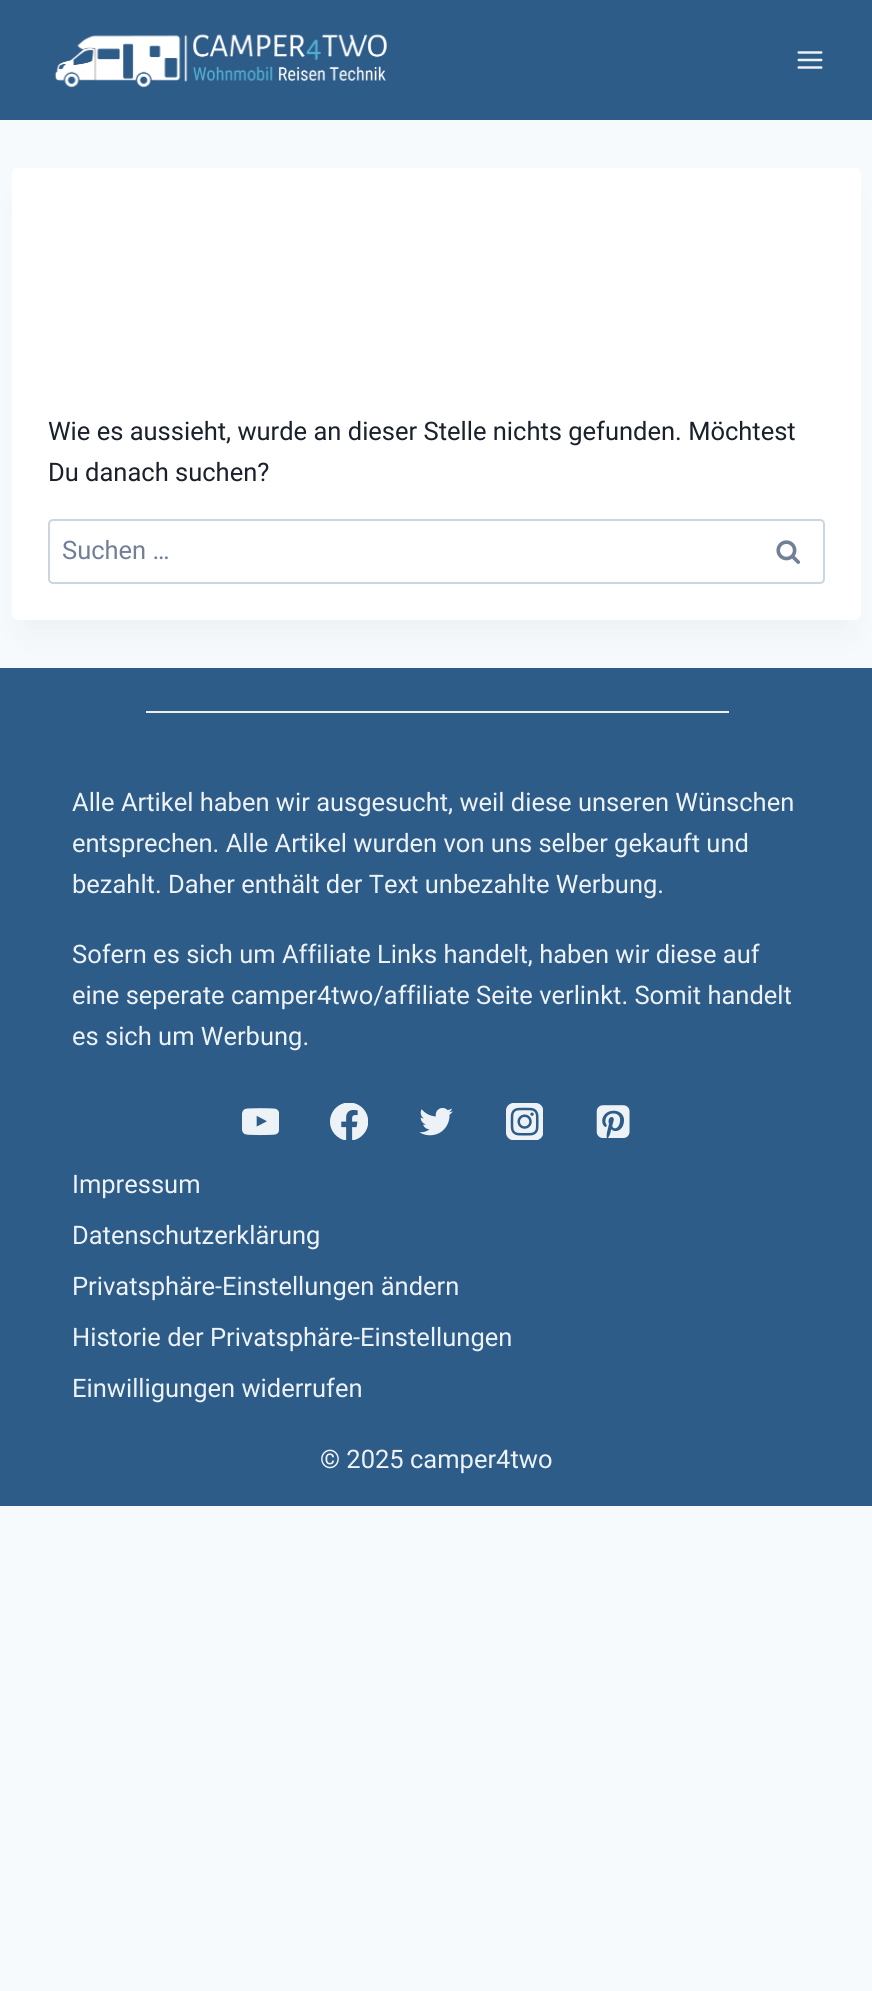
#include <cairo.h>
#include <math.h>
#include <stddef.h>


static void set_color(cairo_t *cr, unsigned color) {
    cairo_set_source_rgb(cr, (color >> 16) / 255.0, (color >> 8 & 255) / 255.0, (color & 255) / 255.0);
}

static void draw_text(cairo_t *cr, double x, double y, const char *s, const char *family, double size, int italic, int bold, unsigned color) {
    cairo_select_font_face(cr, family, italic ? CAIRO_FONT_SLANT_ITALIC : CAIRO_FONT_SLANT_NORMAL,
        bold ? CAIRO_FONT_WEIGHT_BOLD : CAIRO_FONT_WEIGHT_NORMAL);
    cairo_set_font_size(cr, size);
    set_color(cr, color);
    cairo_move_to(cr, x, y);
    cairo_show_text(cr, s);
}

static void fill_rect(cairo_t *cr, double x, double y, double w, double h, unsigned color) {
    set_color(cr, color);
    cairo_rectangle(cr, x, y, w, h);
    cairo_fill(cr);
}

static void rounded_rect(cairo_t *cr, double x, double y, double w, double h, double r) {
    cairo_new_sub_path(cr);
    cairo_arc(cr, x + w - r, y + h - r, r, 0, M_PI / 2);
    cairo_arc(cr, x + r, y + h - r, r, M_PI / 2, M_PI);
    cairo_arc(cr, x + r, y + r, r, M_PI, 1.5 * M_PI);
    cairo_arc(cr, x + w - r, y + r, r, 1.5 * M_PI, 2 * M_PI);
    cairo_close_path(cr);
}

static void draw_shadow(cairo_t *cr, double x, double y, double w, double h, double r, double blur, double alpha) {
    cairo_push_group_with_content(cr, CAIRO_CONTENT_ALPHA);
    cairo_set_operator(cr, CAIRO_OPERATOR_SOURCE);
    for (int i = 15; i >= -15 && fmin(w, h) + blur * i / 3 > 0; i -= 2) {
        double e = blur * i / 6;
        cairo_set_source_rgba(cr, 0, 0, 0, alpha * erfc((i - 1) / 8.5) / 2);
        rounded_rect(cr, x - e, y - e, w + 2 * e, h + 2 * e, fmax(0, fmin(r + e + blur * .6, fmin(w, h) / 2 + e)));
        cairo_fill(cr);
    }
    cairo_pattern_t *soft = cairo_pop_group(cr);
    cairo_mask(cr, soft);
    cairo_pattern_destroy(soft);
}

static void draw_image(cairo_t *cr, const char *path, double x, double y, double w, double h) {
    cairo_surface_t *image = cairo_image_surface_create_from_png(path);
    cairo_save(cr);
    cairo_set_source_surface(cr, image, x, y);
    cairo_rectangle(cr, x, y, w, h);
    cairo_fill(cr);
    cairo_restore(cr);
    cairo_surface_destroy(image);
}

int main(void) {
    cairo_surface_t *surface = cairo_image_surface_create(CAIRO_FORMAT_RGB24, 872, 1991);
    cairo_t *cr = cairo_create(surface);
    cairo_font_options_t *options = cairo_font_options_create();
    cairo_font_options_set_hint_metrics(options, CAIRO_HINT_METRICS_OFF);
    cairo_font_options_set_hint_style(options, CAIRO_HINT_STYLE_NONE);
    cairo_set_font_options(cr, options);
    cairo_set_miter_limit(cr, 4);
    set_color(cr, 0xF7FAFC);
    cairo_paint(cr);
    fill_rect(cr, 0, 0, 872, 120, 0x2D5C88);
    draw_image(cr, "assets/img1.png", 54, 34, 333, 54);
    draw_image(cr, "assets/img2.png", 797, 51, 26, 18);
    fill_rect(cr, 0, 668, 872, 838, 0x2D5C88);
    set_color(cr, 0x000000);
    draw_shadow(cr, 27, 206, 819, 421, 0, 19, 0.05);
    set_color(cr, 0xFFFFFF);
    rounded_rect(cr, 12, 168, 849, 452, 6);
    cairo_fill(cr);
    draw_text(cr, 48, 440, "Wie es aussieht, wurde an dieser Stelle nichts gefunden. Möchtest", "Roboto", 25.5, 0, 0, 0x1A202C);
    draw_text(cr, 48, 481, "Du danach suchen?", "Roboto", 25.5, 0, 0, 0x1A202C);
    rounded_rect(cr, 49, 520, 775, 63, 4);
    set_color(cr, 0xCBD5E0);
    cairo_stroke(cr);
    draw_text(cr, 62, 559, "Suchen …", "Roboto", 25.5, 0, 0, 0x718096);
    draw_image(cr, "assets/img3.png", 776, 540, 25, 24);
    fill_rect(cr, 146, 711, 583, 2, 0xEEEEEE);
    draw_text(cr, 72, 811, "Alle Artikel haben wir ausgesucht, weil diese unseren Wünschen", "Roboto", 25.5, 0, 0, 0xEDF2F7);
    draw_text(cr, 72, 852, "entsprechen. Alle Artikel wurden von uns selber gekauft und", "Roboto", 25.5, 0, 0, 0xEDF2F7);
    draw_text(cr, 72, 893, "bezahlt. Daher enthält der Text unbezahlte Werbung.", "Roboto", 25.5, 0, 0, 0xEDF2F7);
    draw_text(cr, 72, 963, "Sofern es sich um Affiliate Links handelt, haben wir diese auf", "Roboto", 25.5, 0, 0, 0xEDF2F7);
    draw_text(cr, 72, 1004, "eine seperate camper4two/affiliate Seite verlinkt. Somit handelt", "Roboto", 25.5, 0, 0, 0xEDF2F7);
    draw_text(cr, 72, 1045, "es sich um Werbung.", "Roboto", 25.5, 0, 0, 0xEDF2F7);
    draw_image(cr, "assets/img4.png", 242, 1108, 37, 28);
    draw_image(cr, "assets/img5.png", 330, 1103, 38, 37);
    draw_image(cr, "assets/img6.png", 419, 1108, 34, 28);
    draw_image(cr, "assets/img7.png", 506, 1103, 37, 37);
    draw_image(cr, "assets/img8.png", 596, 1105, 34, 33);
    draw_text(cr, 72, 1193, "Impressum", "Roboto", 25.5, 0, 0, 0xEDF2F7);
    draw_text(cr, 72, 1244, "Datenschutzerklärung", "Roboto", 25.5, 0, 0, 0xEDF2F7);
    draw_text(cr, 72, 1295, "Privatsphäre-Einstellungen ändern", "Roboto", 25.5, 0, 0, 0xEDF2F7);
    draw_text(cr, 72, 1346, "Historie der Privatsphäre-Einstellungen", "Roboto", 25.5, 0, 0, 0xEDF2F7);
    draw_text(cr, 72, 1397, "Einwilligungen widerrufen", "Roboto", 25.5, 0, 0, 0xEDF2F7);
    draw_text(cr, 320, 1468, "© 2025 camper4two", "Roboto", 25.5, 0, 0, 0xEDF2F7);
    cairo_surface_write_to_png(surface, "output.png");
    cairo_font_options_destroy(options);
    cairo_destroy(cr);
    cairo_surface_destroy(surface);
    return 0;
}
